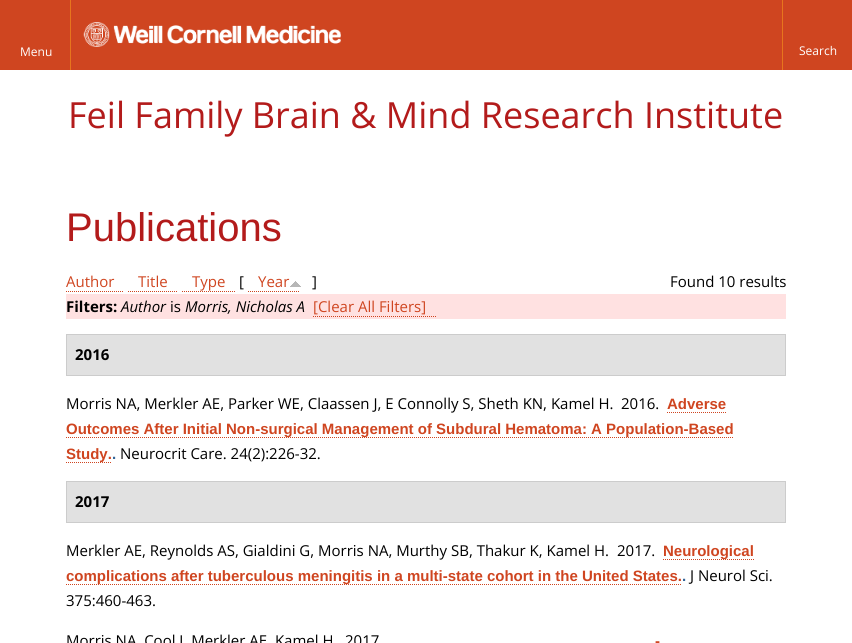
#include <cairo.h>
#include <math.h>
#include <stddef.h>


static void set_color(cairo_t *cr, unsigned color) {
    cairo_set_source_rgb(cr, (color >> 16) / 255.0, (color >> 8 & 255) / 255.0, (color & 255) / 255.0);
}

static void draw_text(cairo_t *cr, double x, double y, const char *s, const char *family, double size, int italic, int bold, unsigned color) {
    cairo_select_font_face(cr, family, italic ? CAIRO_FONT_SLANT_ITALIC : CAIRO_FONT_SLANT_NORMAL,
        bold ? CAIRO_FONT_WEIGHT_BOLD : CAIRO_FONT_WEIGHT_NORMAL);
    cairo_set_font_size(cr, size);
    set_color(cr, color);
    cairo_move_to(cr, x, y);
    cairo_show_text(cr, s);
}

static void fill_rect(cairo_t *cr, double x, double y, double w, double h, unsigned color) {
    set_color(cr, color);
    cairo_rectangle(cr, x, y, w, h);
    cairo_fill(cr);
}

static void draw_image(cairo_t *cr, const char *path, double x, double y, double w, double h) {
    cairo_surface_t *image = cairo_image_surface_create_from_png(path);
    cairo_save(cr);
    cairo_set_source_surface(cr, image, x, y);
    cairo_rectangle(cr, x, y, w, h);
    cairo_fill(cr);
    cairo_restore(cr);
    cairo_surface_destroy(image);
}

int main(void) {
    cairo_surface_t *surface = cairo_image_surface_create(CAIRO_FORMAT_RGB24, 852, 643);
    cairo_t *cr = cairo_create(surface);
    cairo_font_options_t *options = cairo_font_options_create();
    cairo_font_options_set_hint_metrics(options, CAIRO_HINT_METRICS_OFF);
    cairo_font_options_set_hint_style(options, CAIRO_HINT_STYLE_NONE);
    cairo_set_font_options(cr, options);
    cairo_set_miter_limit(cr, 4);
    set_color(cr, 0xFFFFFF);
    cairo_paint(cr);
    fill_rect(cr, 0, 0, 852, 70, 0xCF4520);
    draw_image(cr, "assets/img1.png", 83, 22, 258, 25);
    fill_rect(cr, 70, 0, 1, 70, 0xE7751D);
    draw_text(cr, 20, 56, "Menu", "Open Sans", 12, 0, 0, 0xFFFFFF);
    fill_rect(cr, 782, 0, 1, 70, 0xE7751D);
    draw_text(cr, 799, 55, "Search", "Open Sans", 12, 0, 0, 0xFFFFFF);
    draw_text(cr, 68, 128, "Feil Family Brain & Mind Research Institute", "Open Sans", 36, 0, 0, 0xB31B1B);
    draw_text(cr, 66, 241, "Publications", "Liberation Sans", 40, 0, 0, 0xB31B1B);
    draw_text(cr, 66, 287, "Author", "Open Sans", 15, 0, 0, 0xCF4520);
    cairo_new_path(cr);
    cairo_move_to(cr, 66, 291.5);
    cairo_line_to(cr, 124, 291.5);
    cairo_set_line_width(cr, 1);
    cairo_set_dash(cr, (double[]){1, 1}, 2, 0);
    cairo_stroke(cr);
    draw_text(cr, 138, 287, "Title", "Open Sans", 15, 0, 0, 0xCF4520);
    cairo_new_path(cr);
    cairo_move_to(cr, 128, 291.5);
    cairo_line_to(cr, 178, 291.5);
    cairo_stroke(cr);
    draw_text(cr, 192, 287, "Type", "Open Sans", 15, 0, 0, 0xCF4520);
    cairo_new_path(cr);
    cairo_move_to(cr, 182, 291.5);
    cairo_line_to(cr, 235, 291.5);
    cairo_stroke(cr);
    draw_text(cr, 239, 287, "[", "Open Sans", 15, 0, 0, 0x000000);
    draw_text(cr, 258, 287, "Year", "Open Sans", 15, 0, 0, 0xCF4520);
    cairo_new_path(cr);
    cairo_move_to(cr, 248, 291.5);
    cairo_line_to(cr, 299, 291.5);
    cairo_stroke(cr);
    draw_image(cr, "assets/img2.png", 290, 281, 11, 6);
    draw_text(cr, 312, 287, "]", "Open Sans", 15, 0, 0, 0x000000);
    draw_text(cr, 670, 287, "Found 10 results", "Open Sans", 15, 0, 0, 0x000000);
    fill_rect(cr, 66, 294, 720, 25, 0xFFE1E1);
    draw_text(cr, 66, 312, "Filters:", "Open Sans", 15, 0, 1, 0x000000);
    draw_text(cr, 121, 312, "Author", "Open Sans", 15, 1, 0, 0x000000);
    draw_text(cr, 170, 312, "is", "Open Sans", 15, 0, 0, 0x000000);
    draw_text(cr, 185, 312, "Morris, Nicholas A", "Open Sans", 15, 1, 0, 0x000000);
    draw_text(cr, 313, 312, "[Clear All Filters]", "Open Sans", 15, 0, 0, 0xCF4520);
    cairo_new_path(cr);
    cairo_move_to(cr, 313, 316.5);
    cairo_line_to(cr, 436, 316.5);
    cairo_stroke(cr);
    set_color(cr, 0xE1E1E1);
    cairo_rectangle(cr, 66.5, 334.5, 719, 41);
    cairo_fill_preserve(cr);
    set_color(cr, 0xCCCCCC);
    cairo_set_dash(cr, NULL, 0, 0);
    cairo_stroke(cr);
    draw_text(cr, 75, 360, "2016", "Open Sans", 15, 0, 1, 0x000000);
    draw_text(cr, 66, 409, "Morris NA, Merkler AE, Parker WE, Claassen J, E Connolly S, Sheth KN, Kamel H.", "Open Sans", 15, 0, 0, 0x000000);
    draw_text(cr, 621, 409, "2016.", "Open Sans", 15, 0, 0, 0x000000);
    draw_text(cr, 667, 409, "Adverse", "Liberation Sans", 15, 0, 1, 0xCF4520);
    cairo_new_path(cr);
    cairo_move_to(cr, 667, 412.5);
    cairo_line_to(cr, 726, 412.5);
    cairo_set_dash(cr, (double[]){1, 1}, 2, 0);
    cairo_stroke(cr);
    cairo_new_path(cr);
    cairo_move_to(cr, 66, 437.5);
    cairo_line_to(cr, 734, 437.5);
    cairo_stroke(cr);
    draw_text(cr, 66, 434, "Outcomes After Initial Non-surgical Management of Subdural Hematoma: A Population-Based", "Liberation Sans", 15, 0, 1, 0xCF4520);
    cairo_new_path(cr);
    cairo_move_to(cr, 66, 462.5);
    cairo_line_to(cr, 112, 462.5);
    cairo_stroke(cr);
    draw_text(cr, 66, 459, "Study.", "Liberation Sans", 15, 0, 1, 0xCF4520);
    draw_text(cr, 112, 459, ".", "Liberation Sans", 15, 0, 1, 0x336599);
    draw_text(cr, 120, 459, "Neurocrit Care. 24(2):226-32.", "Open Sans", 15, 0, 0, 0x000000);
    set_color(cr, 0xE1E1E1);
    cairo_rectangle(cr, 66.5, 481.5, 719, 41);
    cairo_fill_preserve(cr);
    set_color(cr, 0xCCCCCC);
    cairo_set_dash(cr, NULL, 0, 0);
    cairo_stroke(cr);
    draw_text(cr, 75, 507, "2017", "Open Sans", 15, 0, 1, 0x000000);
    draw_text(cr, 66, 556, "Merkler AE, Reynolds AS, Gialdini G, Morris NA, Murthy SB, Thakur K, Kamel H.", "Open Sans", 15, 0, 0, 0x000000);
    draw_text(cr, 617, 556, "2017.", "Open Sans", 15, 0, 0, 0x000000);
    cairo_new_path(cr);
    cairo_move_to(cr, 663, 559.5);
    cairo_line_to(cr, 754, 559.5);
    set_color(cr, 0xCF4520);
    cairo_set_dash(cr, (double[]){1, 1}, 2, 0);
    cairo_stroke(cr);
    draw_text(cr, 663, 556, "Neurological", "Liberation Sans", 15, 0, 1, 0xCF4520);
    cairo_new_path(cr);
    cairo_move_to(cr, 66, 584.5);
    cairo_line_to(cr, 682, 584.5);
    cairo_stroke(cr);
    draw_text(cr, 66, 581, "complications after tuberculous meningitis in a multi-state cohort in the United States.", "Liberation Sans", 15, 0, 1, 0xCF4520);
    draw_text(cr, 682, 581, ".", "Liberation Sans", 15, 0, 1, 0x336599);
    draw_text(cr, 690, 581, "J Neurol Sci.", "Open Sans", 15, 0, 0, 0x000000);
    draw_text(cr, 66, 606, "375:460-463.", "Open Sans", 15, 0, 0, 0x000000);
    draw_text(cr, 66, 646, "Morris NA, Cool J, Merkler AE, Kamel H", "Open Sans", 15, 0, 0, 0x000000);
    draw_text(cr, 345, 646, "2017", "Open Sans", 15, 0, 0, 0x000000);
    draw_text(cr, 655, 646, "-", "Liberation Sans", 15, 0, 1, 0xCF4520);
    cairo_surface_write_to_png(surface, "output.png");
    cairo_font_options_destroy(options);
    cairo_destroy(cr);
    cairo_surface_destroy(surface);
    return 0;
}
